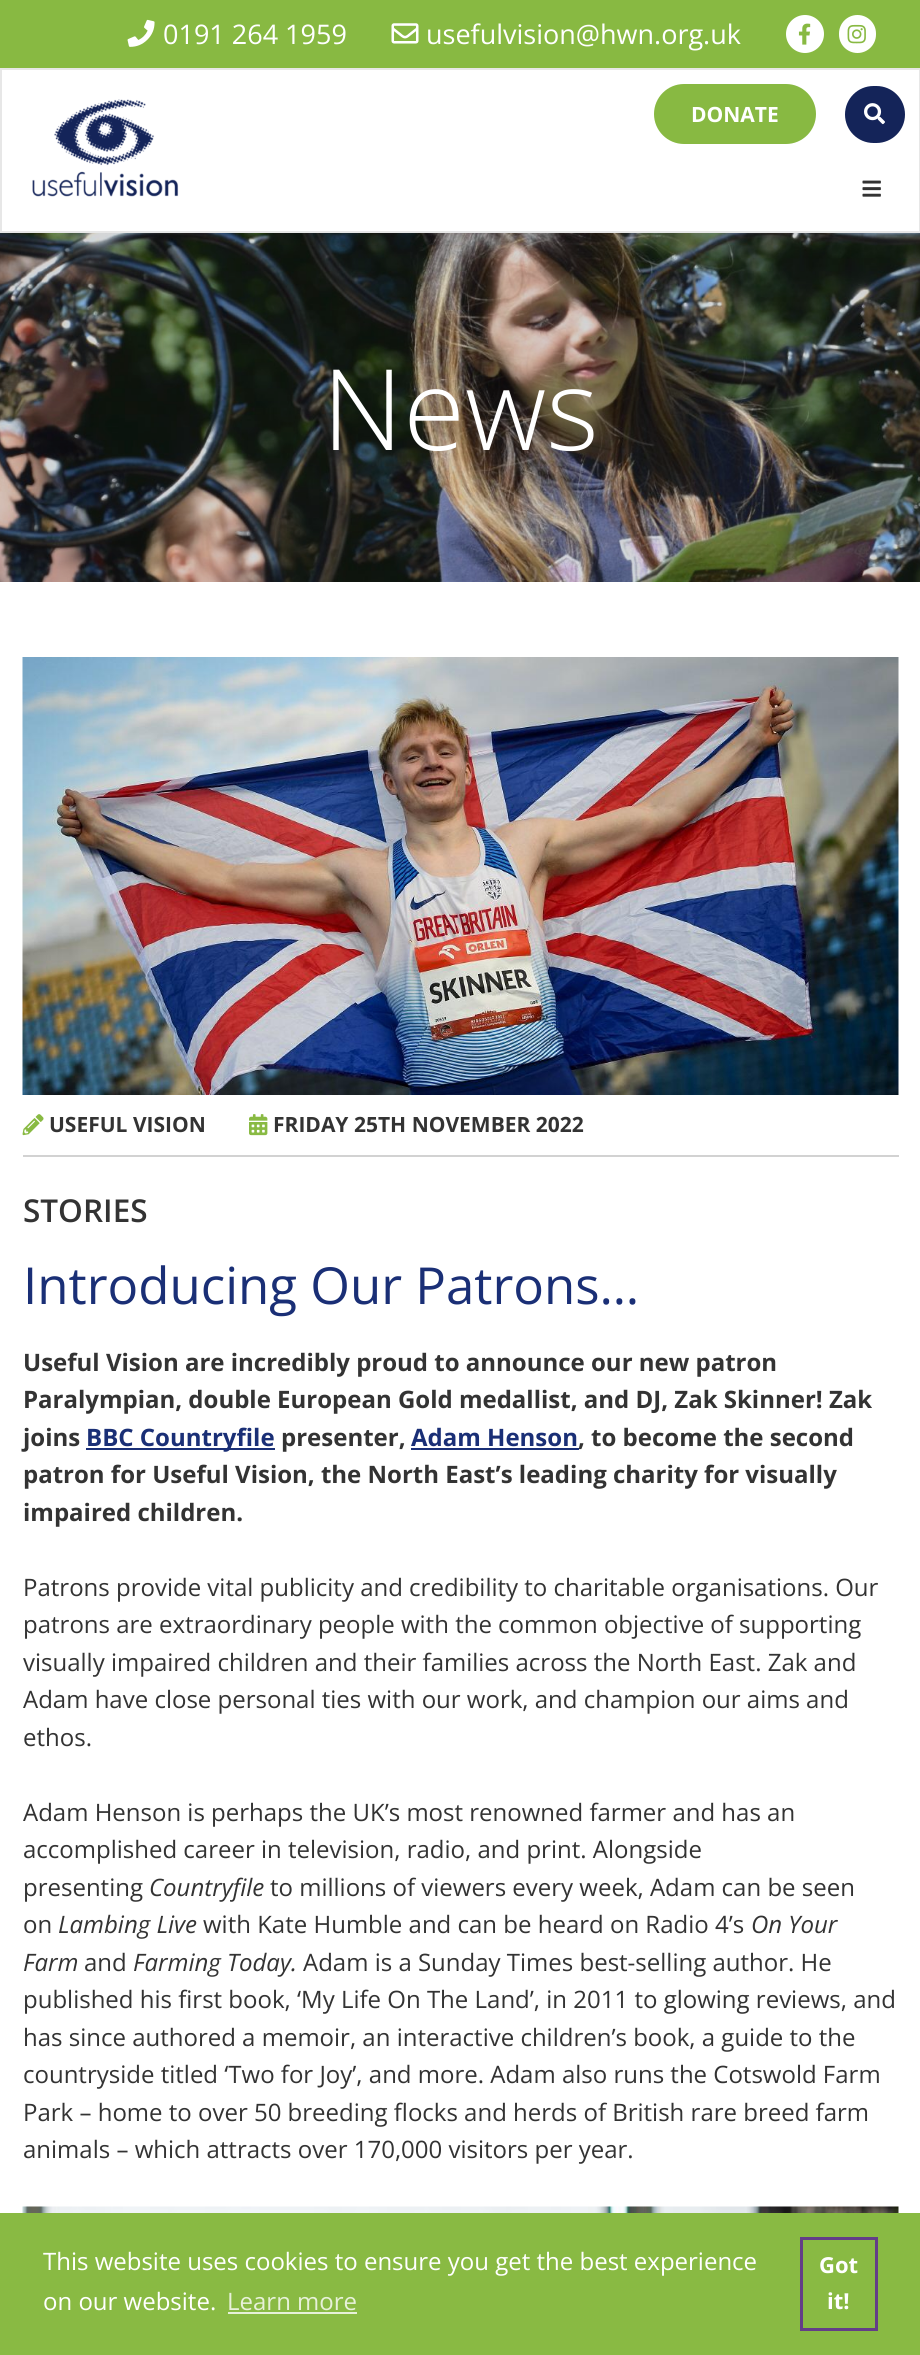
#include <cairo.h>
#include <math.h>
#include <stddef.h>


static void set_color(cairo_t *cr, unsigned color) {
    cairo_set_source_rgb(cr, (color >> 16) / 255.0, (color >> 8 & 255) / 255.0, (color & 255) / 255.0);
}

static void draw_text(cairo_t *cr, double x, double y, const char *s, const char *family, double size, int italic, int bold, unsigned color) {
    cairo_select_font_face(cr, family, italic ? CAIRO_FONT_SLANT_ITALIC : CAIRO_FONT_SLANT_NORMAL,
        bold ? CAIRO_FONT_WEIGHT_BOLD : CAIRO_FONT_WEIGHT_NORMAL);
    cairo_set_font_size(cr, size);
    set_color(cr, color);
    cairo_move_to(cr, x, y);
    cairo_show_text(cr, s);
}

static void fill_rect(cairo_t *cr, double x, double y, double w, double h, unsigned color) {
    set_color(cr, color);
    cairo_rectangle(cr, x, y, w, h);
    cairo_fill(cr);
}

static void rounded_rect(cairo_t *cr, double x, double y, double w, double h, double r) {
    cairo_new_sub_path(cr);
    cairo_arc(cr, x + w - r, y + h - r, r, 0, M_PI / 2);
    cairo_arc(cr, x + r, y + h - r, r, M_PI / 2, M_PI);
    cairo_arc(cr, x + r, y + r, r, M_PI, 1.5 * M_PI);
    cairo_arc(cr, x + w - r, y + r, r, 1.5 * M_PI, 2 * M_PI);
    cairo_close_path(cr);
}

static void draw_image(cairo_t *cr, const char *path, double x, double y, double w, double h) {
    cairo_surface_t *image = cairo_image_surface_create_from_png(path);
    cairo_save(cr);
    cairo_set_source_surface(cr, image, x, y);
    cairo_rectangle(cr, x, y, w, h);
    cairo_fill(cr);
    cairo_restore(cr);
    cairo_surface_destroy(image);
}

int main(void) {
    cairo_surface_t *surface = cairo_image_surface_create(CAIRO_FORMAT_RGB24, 920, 2355);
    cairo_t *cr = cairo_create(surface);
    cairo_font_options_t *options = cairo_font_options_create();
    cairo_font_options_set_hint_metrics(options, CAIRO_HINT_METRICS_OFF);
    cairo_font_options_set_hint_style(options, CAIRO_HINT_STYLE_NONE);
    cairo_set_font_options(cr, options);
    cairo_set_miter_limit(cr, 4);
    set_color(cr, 0xFFFFFF);
    cairo_paint(cr);
    fill_rect(cr, 0, 0, 920, 68, 0x88B942);
    draw_image(cr, "assets/img1.png", 127, 19, 28, 28);
    draw_text(cr, 163, 44, "0191 264 1959", "Open Sans", 27, 0, 0, 0xFFFFFF);
    draw_image(cr, "assets/img2.png", 391, 23, 28, 21);
    draw_text(cr, 426, 44, "usefulvision@hwn.org.uk", "Open Sans", 27, 0, 0, 0xFFFFFF);
    cairo_new_path(cr);
    cairo_arc(cr, 805, 34, 19, 0, 2 * M_PI);
    cairo_fill(cr);
    draw_image(cr, "assets/img3.png", 798, 23, 13, 22);
    rounded_rect(cr, 839, 15, 37, 38, 18.5);
    cairo_fill(cr);
    draw_image(cr, "assets/img4.png", 847, 24, 19, 20);
    cairo_rectangle(cr, 1, 69, 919, 163);
    set_color(cr, 0xE7E7E7);
    cairo_stroke(cr);
    draw_image(cr, "assets/img5.png", 32, 99, 147, 98);
    draw_image(cr, "assets/img6.png", 862, 180, 19, 17);
    set_color(cr, 0x88B942);
    rounded_rect(cr, 654, 84, 162, 60, 30);
    cairo_fill(cr);
    draw_text(cr, 691, 122, "DONATE", "Open Sans", 21, 0, 1, 0xFFFFFF);
    set_color(cr, 0x142459);
    rounded_rect(cr, 845, 86, 60, 57, 28.5);
    cairo_fill(cr);
    draw_image(cr, "assets/img7.png", 864, 103, 21, 22);
    draw_image(cr, "assets/img8.png", 0, 233, 920, 349);
    draw_text(cr, 322, 450, "News", "Open Sans Light", 112.5, 0, 0, 0xFFFFFF);
    draw_image(cr, "assets/img9.png", 22, 657, 877, 438);
    fill_rect(cr, 23, 1155, 876, 2, 0xD2D2D2);
    draw_image(cr, "assets/img10.png", 22, 1114, 22, 22);
    draw_text(cr, 49, 1132, "USEFUL VISION", "Open Sans", 21, 0, 1, 0x333333);
    draw_image(cr, "assets/img11.png", 249, 1114, 19, 22);
    draw_text(cr, 273, 1132, "FRIDAY 25TH NOVEMBER 2022", "Open Sans", 21, 0, 1, 0x333333);
    draw_text(cr, 23, 1222, "STORIES", "Open Sans SemiBold", 31.5, 0, 0, 0x333333);
    draw_text(cr, 23, 1304, "Introducing Our Patrons…", "Open Sans", 51, 0, 0, 0x1A2F76);
    draw_text(cr, 23, 1371, "Useful Vision are incredibly proud to announce our new patron", "Open Sans", 24, 0, 1, 0x333333);
    draw_text(cr, 23, 1408, "Paralympian, double European Gold medallist, and DJ, Zak Skinner! Zak", "Open Sans", 24, 0, 1, 0x333333);
    draw_text(cr, 23, 1446, "joins", "Open Sans", 24, 0, 1, 0x333333);
    fill_rect(cr, 86, 1448, 189, 2, 0x1A2F76);
    draw_text(cr, 86, 1446, "BBC Countryfile", "Open Sans", 24, 0, 1, 0x1A2F76);
    draw_text(cr, 281, 1446, "presenter,", "Open Sans", 24, 0, 1, 0x333333);
    draw_text(cr, 411, 1446, "Adam Henson", "Open Sans", 24, 0, 1, 0x1A2F76);
    draw_text(cr, 578, 1446, ", to become the second", "Open Sans", 24, 0, 1, 0x333333);
    fill_rect(cr, 411, 1448, 168, 2, 0x1A2F76);
    draw_text(cr, 23, 1483, "patron for Useful Vision, the North East’s leading charity for visually", "Open Sans", 24, 0, 1, 0x333333);
    draw_text(cr, 23, 1521, "impaired children.", "Open Sans", 24, 0, 1, 0x333333);
    draw_text(cr, 23, 1596, "Patrons provide vital publicity and credibility to charitable organisations. Our", "Open Sans", 24, 0, 0, 0x333333);
    draw_text(cr, 23, 1633, "patrons are extraordinary people with the common objective of supporting", "Open Sans", 24, 0, 0, 0x333333);
    draw_text(cr, 23, 1671, "visually impaired children and their families across the North East. Zak and", "Open Sans", 24, 0, 0, 0x333333);
    draw_text(cr, 23, 1708, "Adam have close personal ties with our work, and champion our aims and", "Open Sans", 24, 0, 0, 0x333333);
    draw_text(cr, 23, 1746, "ethos.", "Open Sans", 24, 0, 0, 0x333333);
    draw_text(cr, 23, 1821, "Adam Henson is perhaps the UK’s most renowned farmer and has an", "Open Sans", 24, 0, 0, 0x333333);
    draw_text(cr, 23, 1858, "accomplished career in television, radio, and print. Alongside", "Open Sans", 24, 0, 0, 0x333333);
    draw_text(cr, 23, 1896, "presenting", "Open Sans", 24, 0, 0, 0x333333);
    draw_text(cr, 149, 1896, "Countryfile", "Open Sans", 24, 1, 0, 0x333333);
    draw_text(cr, 270, 1896, "to millions of viewers every week, Adam can be seen", "Open Sans", 24, 0, 0, 0x333333);
    draw_text(cr, 23, 1933, "on", "Open Sans", 24, 0, 0, 0x333333);
    draw_text(cr, 58, 1933, "Lambing Live", "Open Sans", 24, 1, 0, 0x333333);
    draw_text(cr, 203, 1933, "with Kate Humble and can be heard on Radio 4’s", "Open Sans", 24, 0, 0, 0x333333);
    draw_text(cr, 751, 1933, "On Your", "Open Sans", 24, 1, 0, 0x333333);
    draw_text(cr, 23, 1971, "Farm", "Open Sans", 24, 1, 0, 0x333333);
    draw_text(cr, 84, 1971, "and", "Open Sans", 24, 0, 0, 0x333333);
    draw_text(cr, 133, 1971, "Farming Today.", "Open Sans", 24, 1, 0, 0x333333);
    draw_text(cr, 303, 1971, "Adam is a Sunday Times best-selling author. He", "Open Sans", 24, 0, 0, 0x333333);
    draw_text(cr, 23, 2008, "published his first book, ‘My Life On The Land’, in 2011 to glowing reviews, and", "Open Sans", 24, 0, 0, 0x333333);
    draw_text(cr, 23, 2046, "has since authored a memoir, an interactive children’s book, a guide to the", "Open Sans", 24, 0, 0, 0x333333);
    draw_text(cr, 23, 2083, "countryside titled ‘Two for Joy’, and more. Adam also runs the Cotswold Farm", "Open Sans", 24, 0, 0, 0x333333);
    draw_text(cr, 23, 2121, "Park – home to over 50 breeding flocks and herds of British rare breed farm", "Open Sans", 24, 0, 0, 0x333333);
    draw_text(cr, 23, 2158, "animals – which attracts over 170,000 visitors per year.", "Open Sans", 24, 0, 0, 0x333333);
    draw_image(cr, "assets/img12.png", 22, 2206, 877, 7);
    fill_rect(cr, 0, 2213, 920, 142, 0x89BA43);
    draw_text(cr, 43, 2270, "This website uses cookies to ensure you get the best experience", "Open Sans", 24, 0, 0, 0xFFFFFF);
    draw_text(cr, 43, 2310, "on our website.", "Open Sans", 24, 0, 0, 0xFFFFFF);
    draw_text(cr, 227, 2310, "Learn more", "Open Sans", 24, 0, 0, 0xE7F1D9);
    fill_rect(cr, 228, 2312, 129, 2, 0xE7F1D9);
    cairo_rectangle(cr, 801.5, 2238.5, 75, 91);
    set_color(cr, 0x633E87);
    cairo_set_line_width(cr, 3);
    cairo_stroke(cr);
    draw_text(cr, 819, 2273, "Got", "Open Sans", 22, 0, 1, 0xFFFFFF);
    draw_text(cr, 827, 2309, "it!", "Open Sans", 22, 0, 1, 0xFFFFFF);
    cairo_surface_write_to_png(surface, "output.png");
    cairo_font_options_destroy(options);
    cairo_destroy(cr);
    cairo_surface_destroy(surface);
    return 0;
}
